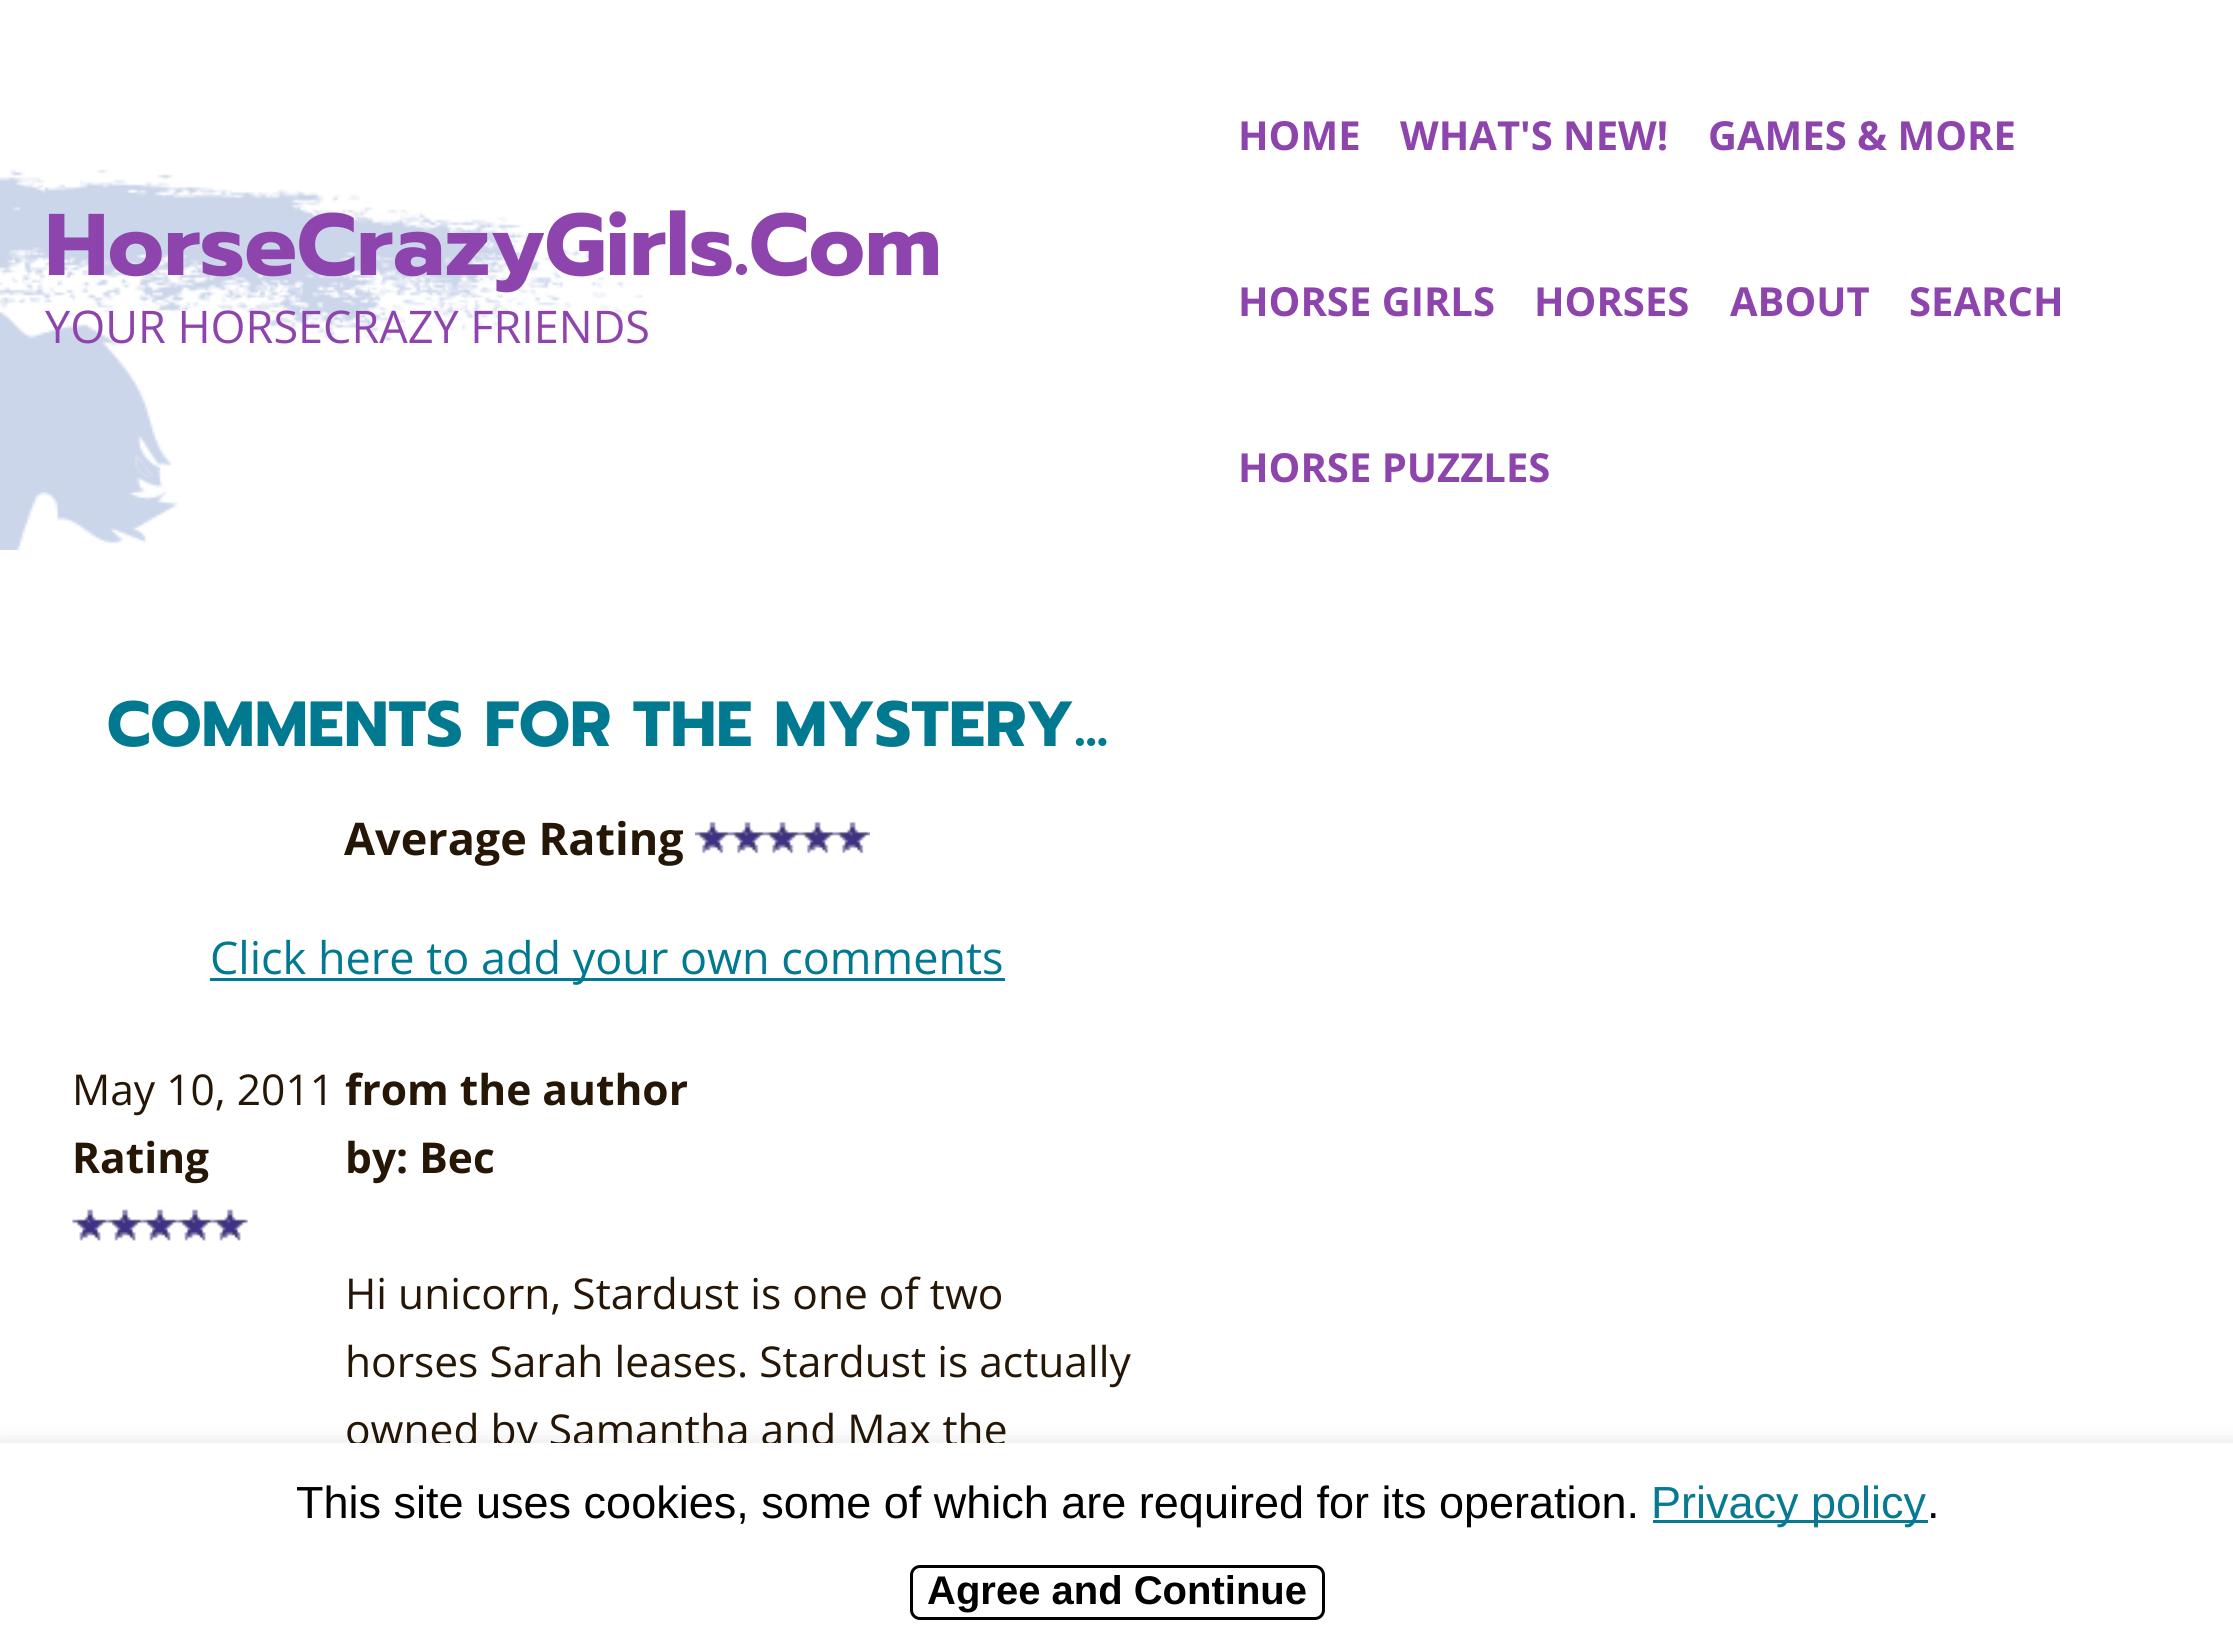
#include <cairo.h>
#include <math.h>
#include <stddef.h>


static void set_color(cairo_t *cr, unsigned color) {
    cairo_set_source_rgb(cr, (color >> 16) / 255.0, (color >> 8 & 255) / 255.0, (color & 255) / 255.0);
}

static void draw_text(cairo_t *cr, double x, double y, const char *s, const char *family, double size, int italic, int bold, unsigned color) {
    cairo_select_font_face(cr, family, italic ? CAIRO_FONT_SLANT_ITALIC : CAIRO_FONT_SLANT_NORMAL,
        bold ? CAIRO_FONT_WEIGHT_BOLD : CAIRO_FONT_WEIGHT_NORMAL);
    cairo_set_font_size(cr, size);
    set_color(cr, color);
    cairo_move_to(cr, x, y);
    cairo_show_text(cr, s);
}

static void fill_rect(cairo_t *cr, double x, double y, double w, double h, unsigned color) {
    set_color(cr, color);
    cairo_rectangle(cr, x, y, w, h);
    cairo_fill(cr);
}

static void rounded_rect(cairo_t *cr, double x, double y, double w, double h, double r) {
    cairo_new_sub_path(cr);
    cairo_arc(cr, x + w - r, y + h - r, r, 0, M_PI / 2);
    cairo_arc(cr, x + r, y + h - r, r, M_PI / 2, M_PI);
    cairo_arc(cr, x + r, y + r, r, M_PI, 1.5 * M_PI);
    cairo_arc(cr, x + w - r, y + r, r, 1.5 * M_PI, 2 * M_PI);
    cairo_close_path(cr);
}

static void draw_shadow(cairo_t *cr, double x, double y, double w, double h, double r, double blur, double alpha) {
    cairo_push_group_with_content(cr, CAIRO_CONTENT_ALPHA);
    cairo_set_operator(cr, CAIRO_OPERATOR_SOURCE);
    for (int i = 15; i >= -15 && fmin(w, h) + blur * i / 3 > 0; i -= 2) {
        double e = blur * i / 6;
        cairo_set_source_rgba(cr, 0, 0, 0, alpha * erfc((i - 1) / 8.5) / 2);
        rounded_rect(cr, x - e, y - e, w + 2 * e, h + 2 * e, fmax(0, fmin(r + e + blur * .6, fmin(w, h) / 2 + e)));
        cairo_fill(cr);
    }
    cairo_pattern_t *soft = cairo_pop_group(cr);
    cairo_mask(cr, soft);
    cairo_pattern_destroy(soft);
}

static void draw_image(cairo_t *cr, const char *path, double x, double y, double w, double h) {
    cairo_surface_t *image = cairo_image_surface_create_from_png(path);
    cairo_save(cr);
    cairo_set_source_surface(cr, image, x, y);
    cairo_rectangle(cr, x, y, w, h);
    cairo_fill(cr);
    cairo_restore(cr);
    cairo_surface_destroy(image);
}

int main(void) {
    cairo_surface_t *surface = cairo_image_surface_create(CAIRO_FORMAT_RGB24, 2233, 1641);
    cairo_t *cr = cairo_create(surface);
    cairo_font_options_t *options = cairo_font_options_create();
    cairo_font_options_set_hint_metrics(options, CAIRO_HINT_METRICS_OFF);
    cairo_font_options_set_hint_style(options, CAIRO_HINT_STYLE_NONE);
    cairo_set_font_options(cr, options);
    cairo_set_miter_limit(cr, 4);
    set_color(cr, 0xFFFFFF);
    cairo_paint(cr);
    draw_image(cr, "assets/img1.png", 0, 169, 643, 381);
    draw_text(cr, 45, 275, "HorseCrazyGirls.Com", "Prompt", 87.5, 0, 1, 0x8E44AD);
    draw_text(cr, 1238, 150, "HOME", "Open Sans", 40, 0, 1, 0x8E44AD);
    draw_text(cr, 1400, 150, "WHAT'S NEW!", "Open Sans", 40, 0, 1, 0x8E44AD);
    draw_text(cr, 1708, 150, "GAMES & MORE", "Open Sans", 40, 0, 1, 0x8E44AD);
    draw_text(cr, 1238, 316, "HORSE GIRLS", "Open Sans", 40, 0, 1, 0x8E44AD);
    draw_text(cr, 1534, 316, "HORSES", "Open Sans", 40, 0, 1, 0x8E44AD);
    draw_text(cr, 1730, 316, "ABOUT", "Open Sans", 40, 0, 1, 0x8E44AD);
    draw_text(cr, 1909, 316, "SEARCH", "Open Sans", 40, 0, 1, 0x8E44AD);
    draw_text(cr, 1238, 482, "HORSE PUZZLES", "Open Sans", 40, 0, 1, 0x8E44AD);
    draw_text(cr, 45, 343, "YOUR HORSECRAZY FRIENDS", "Open Sans", 45, 0, 0, 0x8E44AD);
    draw_text(cr, 107, 746, "COMMENTS FOR THE MYSTERY...", "Prompt", 63.75, 0, 1, 0x007991);
    draw_text(cr, 344, 855, "Average Rating", "Open Sans", 45, 0, 1, 0x251605);
    draw_image(cr, "assets/img2.png", 695, 821, 35, 33);
    draw_image(cr, "assets/img2.png", 730, 821, 35, 33);
    draw_image(cr, "assets/img3.png", 765, 821, 35, 33);
    draw_image(cr, "assets/img4.png", 800, 821, 35, 33);
    draw_image(cr, "assets/img2.png", 835, 821, 35, 33);
    fill_rect(cr, 210, 978, 795, 3, 0x007991);
    draw_text(cr, 210, 974, "Click here to add your own comments", "Open Sans", 45, 0, 0, 0x007991);
    draw_text(cr, 72, 1105, "May 10, 2011", "Open Sans", 42.5, 0, 0, 0x251605);
    draw_text(cr, 72, 1173, "Rating", "Open Sans", 42.5, 0, 1, 0x251605);
    draw_image(cr, "assets/img5.png", 72, 1209, 36, 32);
    draw_image(cr, "assets/img6.png", 107, 1209, 36, 32);
    draw_image(cr, "assets/img6.png", 142, 1209, 36, 32);
    draw_image(cr, "assets/img6.png", 177, 1209, 36, 32);
    draw_image(cr, "assets/img6.png", 212, 1209, 36, 32);
    draw_text(cr, 345, 1105, "from the author", "Open Sans", 42.5, 0, 1, 0x251605);
    draw_text(cr, 345, 1173, "by: Bec", "Open Sans", 42.5, 0, 1, 0x251605);
    draw_text(cr, 345, 1309, "Hi unicorn, Stardust is one of two", "Open Sans", 42.5, 0, 0, 0x251605);
    draw_text(cr, 345, 1377, "horses Sarah leases. Stardust is actually", "Open Sans", 42.5, 0, 0, 0x251605);
    draw_text(cr, 345, 1445, "owned by Samantha and Max the", "Open Sans", 42.5, 0, 0, 0x251605);
    set_color(cr, 0x000000);
    draw_shadow(cr, -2, 1450, 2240, 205, 0, 12.5, 0.2);
    fill_rect(cr, 0, 1443, 2233, 198, 0xFFFFFF);
    draw_text(cr, 296, 1518, "This site uses cookies, some of which are required for its operation.", "Liberation Sans", 45, 0, 0, 0x000000);
    fill_rect(cr, 1653, 1520, 275, 3, 0x077991);
    draw_text(cr, 1651, 1518, "Privacy policy", "Liberation Sans", 45, 0, 0, 0x077991);
    draw_text(cr, 1927, 1518, ".", "Liberation Sans", 45, 0, 0, 0x000000);
    rounded_rect(cr, 911.5, 1566.5, 412, 52, 8.5);
    cairo_set_line_width(cr, 3);
    cairo_stroke(cr);
    draw_text(cr, 927, 1604, "Agree and Continue", "Liberation Sans", 40, 0, 1, 0x000000);
    cairo_surface_write_to_png(surface, "output.png");
    cairo_font_options_destroy(options);
    cairo_destroy(cr);
    cairo_surface_destroy(surface);
    return 0;
}
